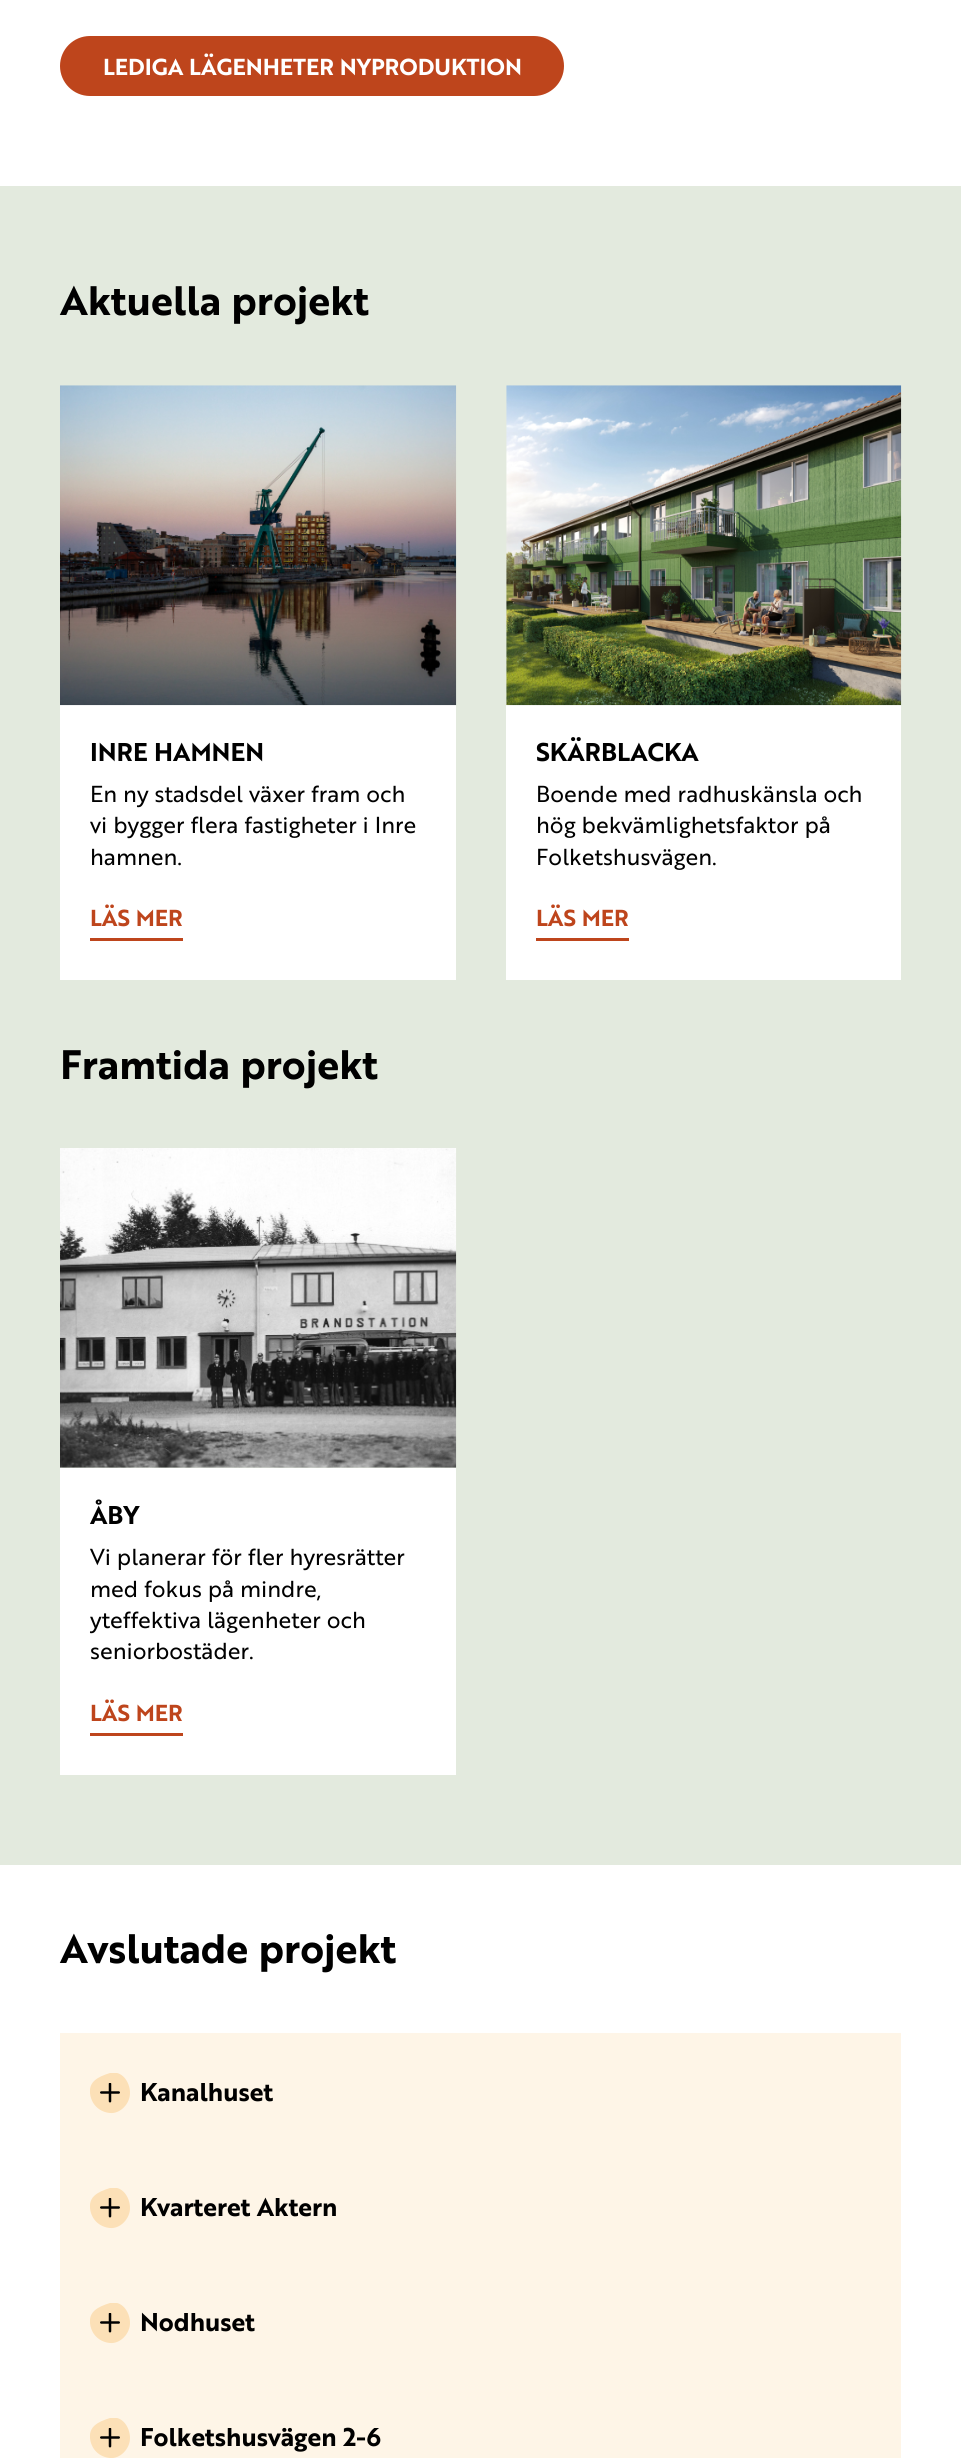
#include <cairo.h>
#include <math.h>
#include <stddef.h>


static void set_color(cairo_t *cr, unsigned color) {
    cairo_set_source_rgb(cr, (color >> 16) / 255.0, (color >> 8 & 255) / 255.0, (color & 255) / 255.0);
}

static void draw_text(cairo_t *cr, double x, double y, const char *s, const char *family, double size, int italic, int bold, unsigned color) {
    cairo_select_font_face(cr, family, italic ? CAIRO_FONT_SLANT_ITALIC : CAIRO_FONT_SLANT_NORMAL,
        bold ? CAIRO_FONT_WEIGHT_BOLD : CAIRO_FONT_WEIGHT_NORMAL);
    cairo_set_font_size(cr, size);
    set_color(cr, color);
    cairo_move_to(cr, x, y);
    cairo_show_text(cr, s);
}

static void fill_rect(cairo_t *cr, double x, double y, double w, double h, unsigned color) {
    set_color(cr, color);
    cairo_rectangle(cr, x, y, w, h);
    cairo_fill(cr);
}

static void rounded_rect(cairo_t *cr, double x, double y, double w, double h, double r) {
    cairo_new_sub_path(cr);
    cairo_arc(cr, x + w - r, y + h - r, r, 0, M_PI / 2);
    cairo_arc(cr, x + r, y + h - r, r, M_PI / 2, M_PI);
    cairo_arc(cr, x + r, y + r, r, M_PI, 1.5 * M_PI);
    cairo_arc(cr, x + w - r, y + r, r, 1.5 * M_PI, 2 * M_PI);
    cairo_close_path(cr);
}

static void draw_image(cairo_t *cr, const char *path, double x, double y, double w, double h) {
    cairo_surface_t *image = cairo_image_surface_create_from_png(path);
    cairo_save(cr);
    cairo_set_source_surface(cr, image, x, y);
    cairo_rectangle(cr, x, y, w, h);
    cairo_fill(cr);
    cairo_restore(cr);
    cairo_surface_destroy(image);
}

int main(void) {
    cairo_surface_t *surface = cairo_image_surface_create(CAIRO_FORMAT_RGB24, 961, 2458);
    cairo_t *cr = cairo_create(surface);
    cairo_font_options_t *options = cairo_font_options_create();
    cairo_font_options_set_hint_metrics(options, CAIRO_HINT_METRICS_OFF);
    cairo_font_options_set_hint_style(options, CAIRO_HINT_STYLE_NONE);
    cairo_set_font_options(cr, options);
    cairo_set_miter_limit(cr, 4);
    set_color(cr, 0xFFFFFF);
    cairo_paint(cr);
    set_color(cr, 0xBE451C);
    rounded_rect(cr, 61.5, 37.5, 501, 57, 28.5);
    cairo_fill_preserve(cr);
    cairo_set_line_width(cr, 3);
    cairo_stroke(cr);
    draw_text(cr, 103, 75, "LEDIGA LÄGENHETER NYPRODUKTION", "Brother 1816", 22.5, 0, 1, 0xFFFFFF);
    fill_rect(cr, 0, 186, 961, 1679, 0xE3EADE);
    draw_text(cr, 60, 315, "Aktuella projekt", "Brother 1816", 40, 0, 1, 0x000000);
    fill_rect(cr, 60, 705, 396, 275, 0xFFFFFF);
    draw_image(cr, "assets/img1.png", 60, 385, 397, 321);
    draw_text(cr, 90, 761, "INRE HAMNEN", "Brother 1816", 25, 0, 1, 0x000000);
    draw_text(cr, 90, 802, "En ny stadsdel växer fram och", "Brother 1816", 22.5, 0, 0, 0x000000);
    draw_text(cr, 90, 833, "vi bygger flera fastigheter i Inre", "Brother 1816", 22.5, 0, 0, 0x000000);
    draw_text(cr, 90, 865, "hamnen.", "Brother 1816", 22.5, 0, 0, 0x000000);
    fill_rect(cr, 90, 938, 93, 3, 0xBE451C);
    draw_text(cr, 90, 926, "LÄS MER", "Brother 1816", 22.5, 0, 1, 0xBE451C);
    fill_rect(cr, 506, 705, 395, 275, 0xFFFFFF);
    draw_image(cr, "assets/img2.png", 506, 385, 396, 321);
    draw_text(cr, 536, 761, "SKÄRBLACKA", "Brother 1816", 25, 0, 1, 0x000000);
    draw_text(cr, 536, 802, "Boende med radhuskänsla och", "Brother 1816", 22.5, 0, 0, 0x000000);
    draw_text(cr, 536, 833, "hög bekvämlighetsfaktor på", "Brother 1816", 22.5, 0, 0, 0x000000);
    draw_text(cr, 536, 865, "Folketshusvägen.", "Brother 1816", 22.5, 0, 0, 0x000000);
    fill_rect(cr, 536, 938, 93, 3, 0xBE451C);
    draw_text(cr, 536, 926, "LÄS MER", "Brother 1816", 22.5, 0, 1, 0xBE451C);
    draw_text(cr, 60, 1079, "Framtida projekt", "Brother 1816", 40, 0, 1, 0x000000);
    draw_image(cr, "assets/img3.png", 60, 1148, 397, 320);
    fill_rect(cr, 60, 1468, 396, 307, 0xFFFFFF);
    draw_text(cr, 90, 1524, "ÅBY", "Brother 1816", 25, 0, 1, 0x000000);
    draw_text(cr, 90, 1565, "Vi planerar för fler hyresrätter", "Brother 1816", 22.5, 0, 0, 0x000000);
    draw_text(cr, 90, 1597, "med fokus på mindre,", "Brother 1816", 22.5, 0, 0, 0x000000);
    draw_text(cr, 90, 1628, "yteffektiva lägenheter och", "Brother 1816", 22.5, 0, 0, 0x000000);
    draw_text(cr, 90, 1659, "seniorbostäder.", "Brother 1816", 22.5, 0, 0, 0x000000);
    fill_rect(cr, 90, 1733, 93, 3, 0xBE451C);
    draw_text(cr, 90, 1721, "LÄS MER", "Brother 1816", 22.5, 0, 1, 0xBE451C);
    draw_text(cr, 60, 1963, "Avslutade projekt", "Brother 1816", 40, 0, 1, 0x000000);
    fill_rect(cr, 60, 2033, 841, 425, 0xFEF5E7);
    cairo_save(cr);
    cairo_rectangle(cr, 90, 2073, 40, 41);
    cairo_clip(cr);
    set_color(cr, 0xFCE0B7);
    cairo_new_path(cr);
    cairo_move_to(cr, 110, 2113);
    cairo_curve_to(cr, 120, 2114, 130, 2104, 130, 2093);
    cairo_curve_to(cr, 130, 2082, 122, 2070, 110, 2073);
    cairo_curve_to(cr, 97, 2077, 89, 2082, 90, 2093);
    cairo_curve_to(cr, 91, 2104, 99, 2112, 110, 2113);
    cairo_close_path(cr);
    cairo_fill(cr);
    cairo_restore(cr);
    draw_image(cr, "assets/img4.png", 100, 2083, 20, 20);
    draw_text(cr, 140, 2101, "Kanalhuset", "Brother 1816", 25, 0, 1, 0x000000);
    cairo_save(cr);
    cairo_rectangle(cr, 90, 2188, 40, 41);
    cairo_clip(cr);
    set_color(cr, 0xFCE0B7);
    cairo_new_path(cr);
    cairo_move_to(cr, 110, 2228);
    cairo_curve_to(cr, 120, 2229, 130, 2219, 130, 2208);
    cairo_curve_to(cr, 130, 2197, 122, 2185, 110, 2188);
    cairo_curve_to(cr, 97, 2192, 89, 2197, 90, 2208);
    cairo_curve_to(cr, 91, 2219, 99, 2227, 110, 2228);
    cairo_close_path(cr);
    cairo_fill(cr);
    cairo_restore(cr);
    draw_image(cr, "assets/img4.png", 100, 2198, 20, 20);
    draw_text(cr, 140, 2216, "Kvarteret Aktern", "Brother 1816", 25, 0, 1, 0x000000);
    cairo_save(cr);
    cairo_rectangle(cr, 90, 2303, 40, 41);
    cairo_clip(cr);
    set_color(cr, 0xFCE0B7);
    cairo_new_path(cr);
    cairo_move_to(cr, 110, 2343);
    cairo_curve_to(cr, 120, 2344, 130, 2334, 130, 2323);
    cairo_curve_to(cr, 130, 2312, 122, 2300, 110, 2303);
    cairo_curve_to(cr, 97, 2307, 89, 2312, 90, 2323);
    cairo_curve_to(cr, 91, 2334, 99, 2342, 110, 2343);
    cairo_close_path(cr);
    cairo_fill(cr);
    cairo_restore(cr);
    draw_image(cr, "assets/img4.png", 100, 2313, 20, 20);
    draw_text(cr, 140, 2331, "Nodhuset", "Brother 1816", 25, 0, 1, 0x000000);
    cairo_save(cr);
    cairo_rectangle(cr, 90, 2418, 40, 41);
    cairo_clip(cr);
    set_color(cr, 0xFCE0B7);
    cairo_new_path(cr);
    cairo_move_to(cr, 110, 2458);
    cairo_curve_to(cr, 120, 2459, 130, 2449, 130, 2438);
    cairo_curve_to(cr, 130, 2427, 122, 2415, 110, 2418);
    cairo_curve_to(cr, 97, 2422, 89, 2427, 90, 2438);
    cairo_curve_to(cr, 91, 2449, 99, 2457, 110, 2458);
    cairo_close_path(cr);
    cairo_fill(cr);
    cairo_restore(cr);
    draw_image(cr, "assets/img4.png", 100, 2428, 20, 20);
    draw_text(cr, 140, 2446, "Folketshusvägen 2-6", "Brother 1816", 25, 0, 1, 0x000000);
    cairo_surface_write_to_png(surface, "output.png");
    cairo_font_options_destroy(options);
    cairo_destroy(cr);
    cairo_surface_destroy(surface);
    return 0;
}
